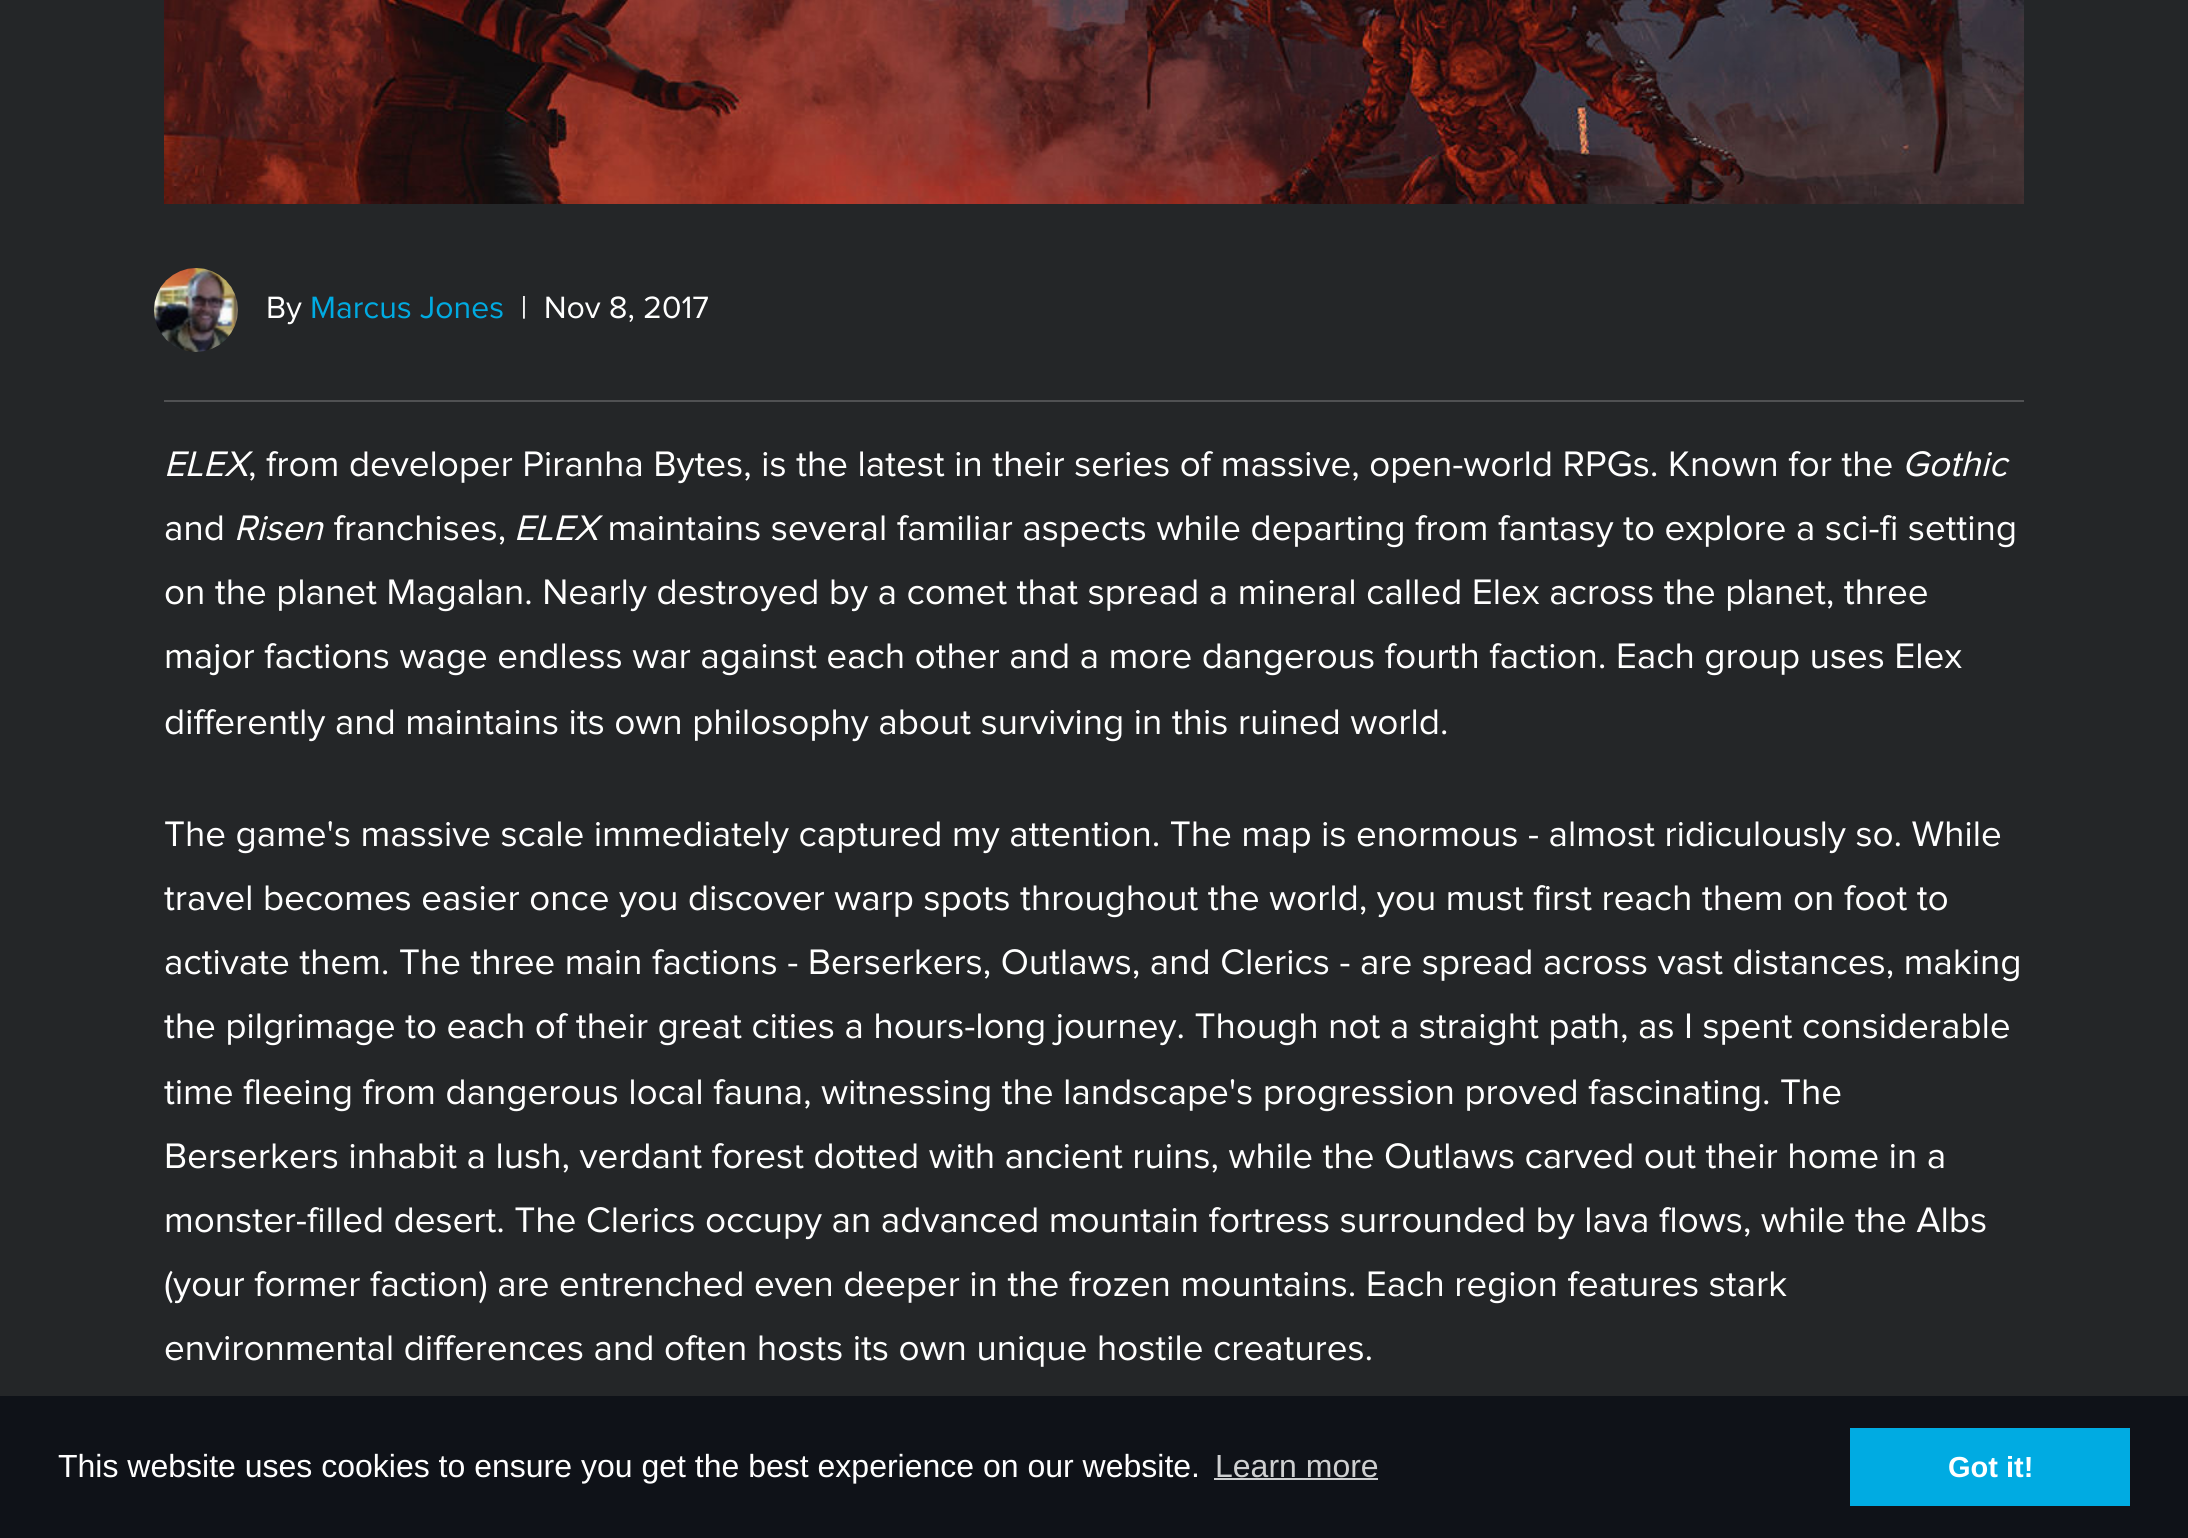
#include <cairo.h>
#include <math.h>
#include <stddef.h>


static void set_color(cairo_t *cr, unsigned color) {
    cairo_set_source_rgb(cr, (color >> 16) / 255.0, (color >> 8 & 255) / 255.0, (color & 255) / 255.0);
}

static void draw_text(cairo_t *cr, double x, double y, const char *s, const char *family, double size, int italic, int bold, unsigned color) {
    cairo_select_font_face(cr, family, italic ? CAIRO_FONT_SLANT_ITALIC : CAIRO_FONT_SLANT_NORMAL,
        bold ? CAIRO_FONT_WEIGHT_BOLD : CAIRO_FONT_WEIGHT_NORMAL);
    cairo_set_font_size(cr, size);
    set_color(cr, color);
    cairo_move_to(cr, x, y);
    cairo_show_text(cr, s);
}

static void fill_rect(cairo_t *cr, double x, double y, double w, double h, unsigned color) {
    set_color(cr, color);
    cairo_rectangle(cr, x, y, w, h);
    cairo_fill(cr);
}

static void draw_image(cairo_t *cr, const char *path, double x, double y, double w, double h) {
    cairo_surface_t *image = cairo_image_surface_create_from_png(path);
    cairo_save(cr);
    cairo_set_source_surface(cr, image, x, y);
    cairo_rectangle(cr, x, y, w, h);
    cairo_fill(cr);
    cairo_restore(cr);
    cairo_surface_destroy(image);
}

int main(void) {
    cairo_surface_t *surface = cairo_image_surface_create(CAIRO_FORMAT_RGB24, 2188, 1538);
    cairo_t *cr = cairo_create(surface);
    cairo_font_options_t *options = cairo_font_options_create();
    cairo_font_options_set_hint_metrics(options, CAIRO_HINT_METRICS_OFF);
    cairo_font_options_set_hint_style(options, CAIRO_HINT_STYLE_NONE);
    cairo_set_font_options(cr, options);
    cairo_set_miter_limit(cr, 4);
    set_color(cr, 0x242628);
    cairo_paint(cr);
    draw_image(cr, "assets/img1.png", 164, 0, 1860, 204);
    draw_image(cr, "assets/img2.png", 154, 268, 84, 84);
    draw_image(cr, "assets/img3.png", 268, 296, 34, 29);
    draw_image(cr, "assets/img4.png", 312, 296, 191, 23);
    draw_image(cr, "assets/img5.png", 523, 296, 185, 26);
    fill_rect(cr, 164, 400, 1860, 2, 0x505153);
    draw_image(cr, "assets/img6.png", 166, 451, 87, 25);
    draw_image(cr, "assets/img7.png", 250, 451, 1642, 33);
    draw_image(cr, "assets/img8.png", 1906, 451, 104, 26);
    draw_image(cr, "assets/img9.png", 165, 515, 58, 26);
    draw_image(cr, "assets/img10.png", 236, 515, 88, 26);
    draw_image(cr, "assets/img11.png", 334, 515, 171, 30);
    draw_image(cr, "assets/img6.png", 516, 515, 87, 25);
    draw_image(cr, "assets/img12.png", 610, 515, 1405, 33);
    draw_image(cr, "assets/img13.png", 165, 579, 1762, 33);
    draw_image(cr, "assets/img14.png", 166, 643, 1796, 33);
    draw_image(cr, "assets/img15.png", 165, 709, 1282, 33);
    draw_image(cr, "assets/img16.png", 165, 821, 1836, 33);
    draw_image(cr, "assets/img17.png", 164, 885, 1783, 33);
    draw_image(cr, "assets/img18.png", 165, 949, 1854, 33);
    draw_image(cr, "assets/img19.png", 164, 1013, 1845, 33);
    draw_image(cr, "assets/img20.png", 164, 1079, 1677, 33);
    draw_image(cr, "assets/img21.png", 166, 1143, 1778, 30);
    draw_image(cr, "assets/img22.png", 166, 1207, 1820, 33);
    draw_image(cr, "assets/img23.png", 165, 1270, 1622, 34);
    draw_image(cr, "assets/img24.png", 165, 1335, 1206, 32);
    fill_rect(cr, 0, 1396, 2188, 142, 0x0F1218);
    draw_text(cr, 58, 1477, "This website uses cookies to ensure you get the best experience on our website.", "Liberation Sans", 32, 0, 0, 0xFFFFFF);
    draw_text(cr, 1215, 1477, "Learn more", "Liberation Sans", 32, 0, 0, 0xCFD0D1);
    fill_rect(cr, 1214, 1478, 164, 2, 0xCFD0D1);
    fill_rect(cr, 1850, 1428, 280, 78, 0x00ABE2);
    draw_text(cr, 1948, 1477, "Got it!", "Liberation Sans", 29, 0, 1, 0xFFFFFF);
    cairo_surface_write_to_png(surface, "output.png");
    cairo_font_options_destroy(options);
    cairo_destroy(cr);
    cairo_surface_destroy(surface);
    return 0;
}
